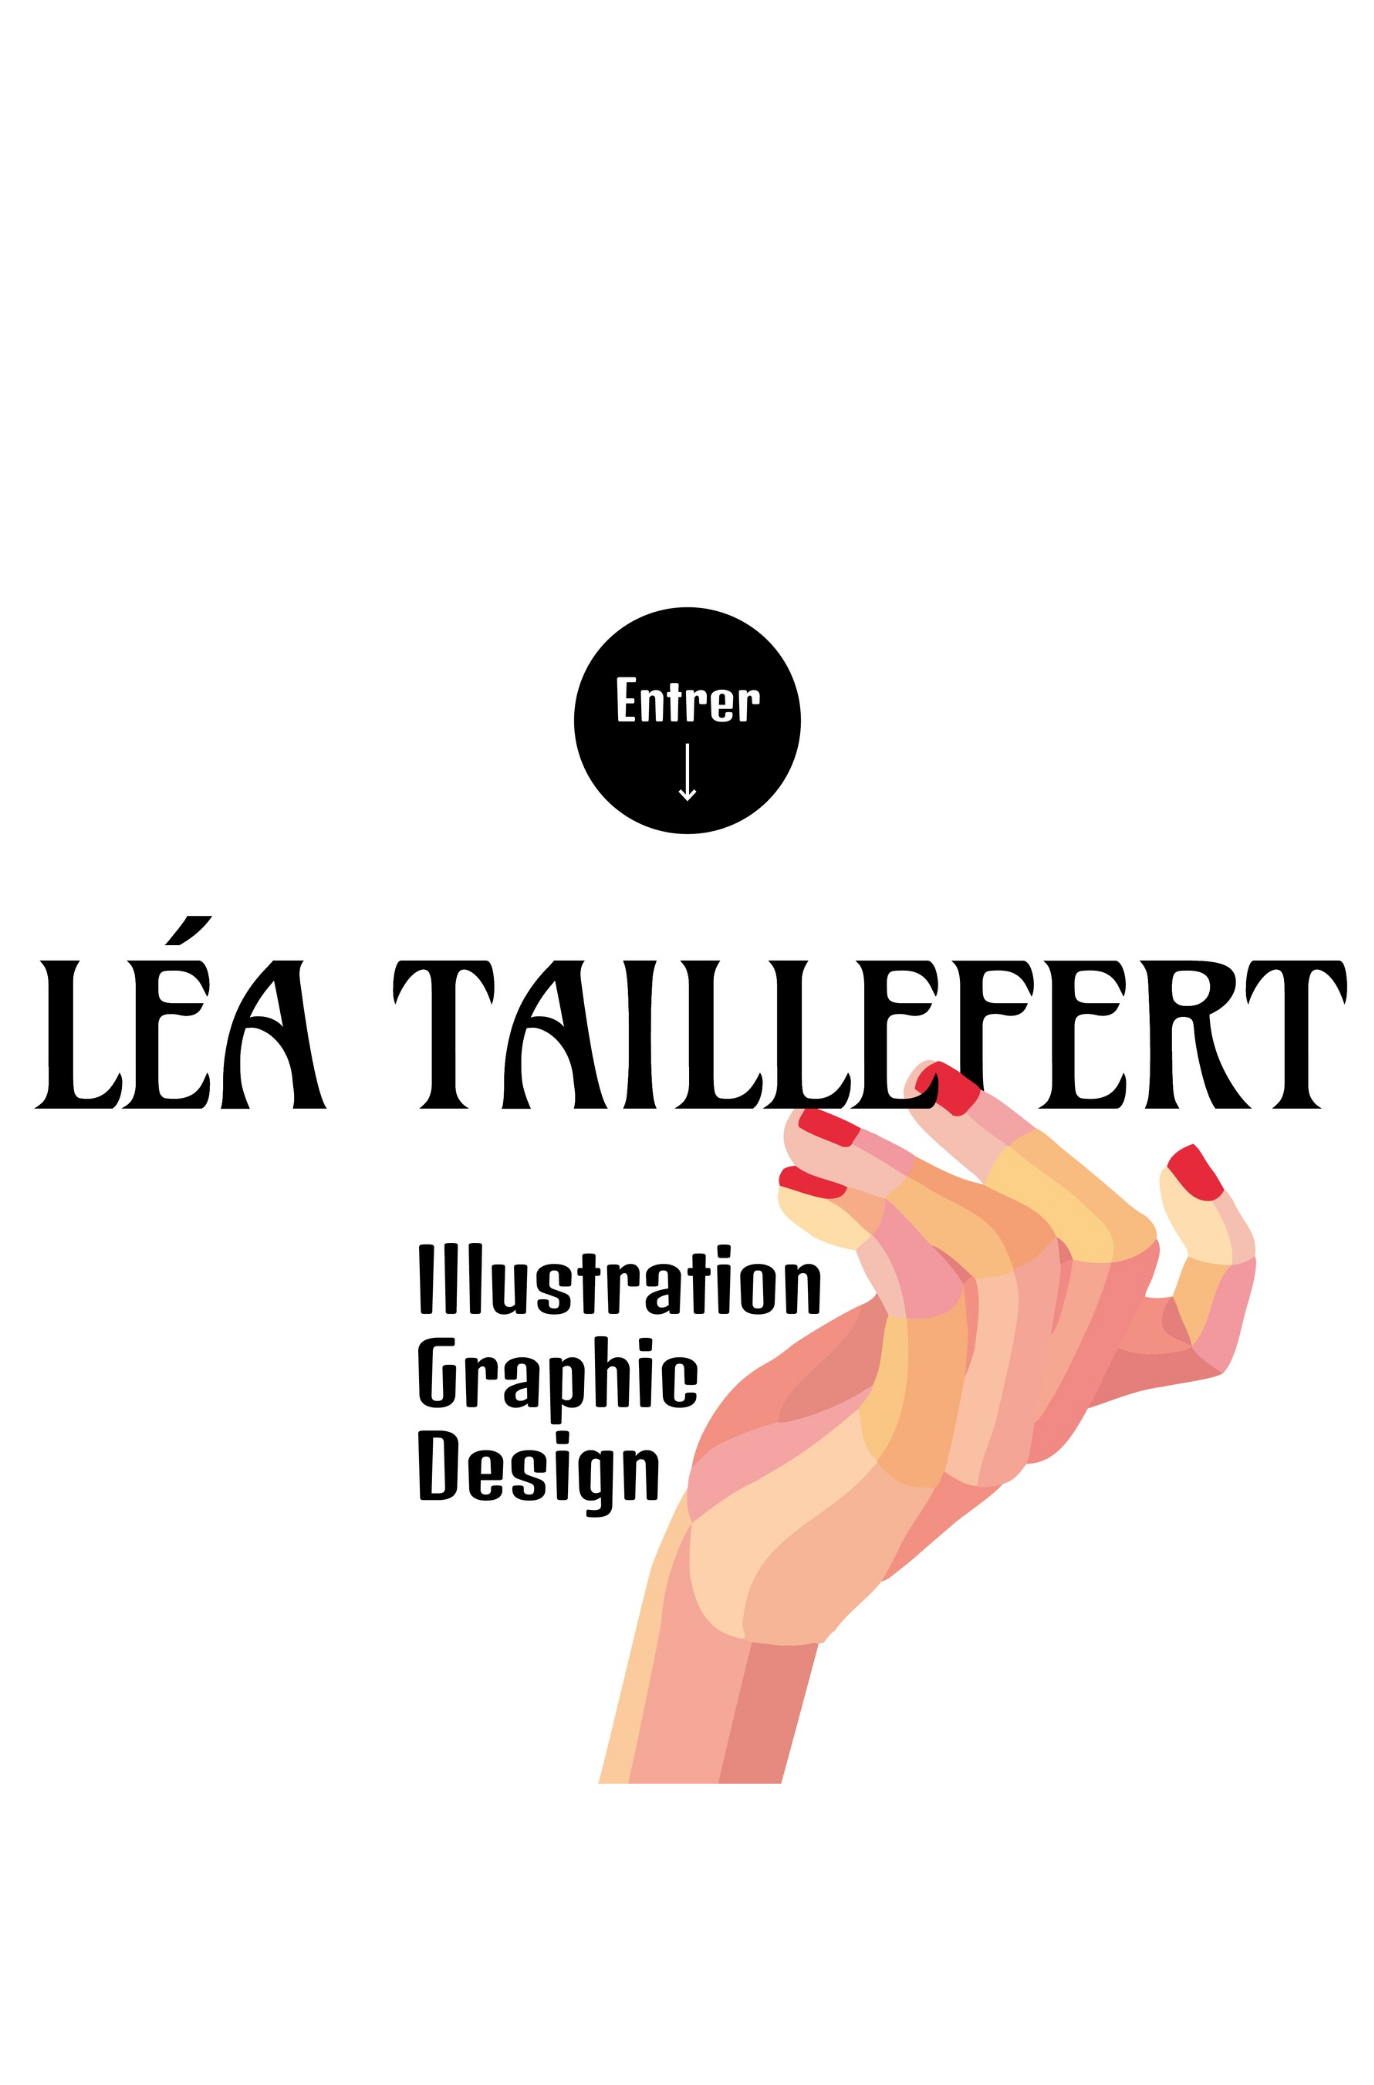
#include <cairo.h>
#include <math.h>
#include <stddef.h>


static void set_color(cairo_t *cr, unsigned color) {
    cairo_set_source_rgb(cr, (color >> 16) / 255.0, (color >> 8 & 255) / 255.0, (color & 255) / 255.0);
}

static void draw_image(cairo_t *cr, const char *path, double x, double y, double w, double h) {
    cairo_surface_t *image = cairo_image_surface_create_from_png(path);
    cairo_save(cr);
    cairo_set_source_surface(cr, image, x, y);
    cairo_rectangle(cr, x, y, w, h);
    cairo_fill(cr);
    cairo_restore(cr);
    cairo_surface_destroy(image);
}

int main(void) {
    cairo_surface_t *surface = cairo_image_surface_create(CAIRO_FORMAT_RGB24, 1374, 2085);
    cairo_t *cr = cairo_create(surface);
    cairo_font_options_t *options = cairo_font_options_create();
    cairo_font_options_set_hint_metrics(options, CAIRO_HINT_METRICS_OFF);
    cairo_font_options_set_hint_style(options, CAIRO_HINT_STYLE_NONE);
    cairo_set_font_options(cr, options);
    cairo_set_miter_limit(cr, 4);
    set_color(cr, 0xFFFFFF);
    cairo_paint(cr);
    draw_image(cr, "assets/img1.png", 34, 606, 1315, 1178);
    cairo_surface_write_to_png(surface, "output.png");
    cairo_font_options_destroy(options);
    cairo_destroy(cr);
    cairo_surface_destroy(surface);
    return 0;
}
